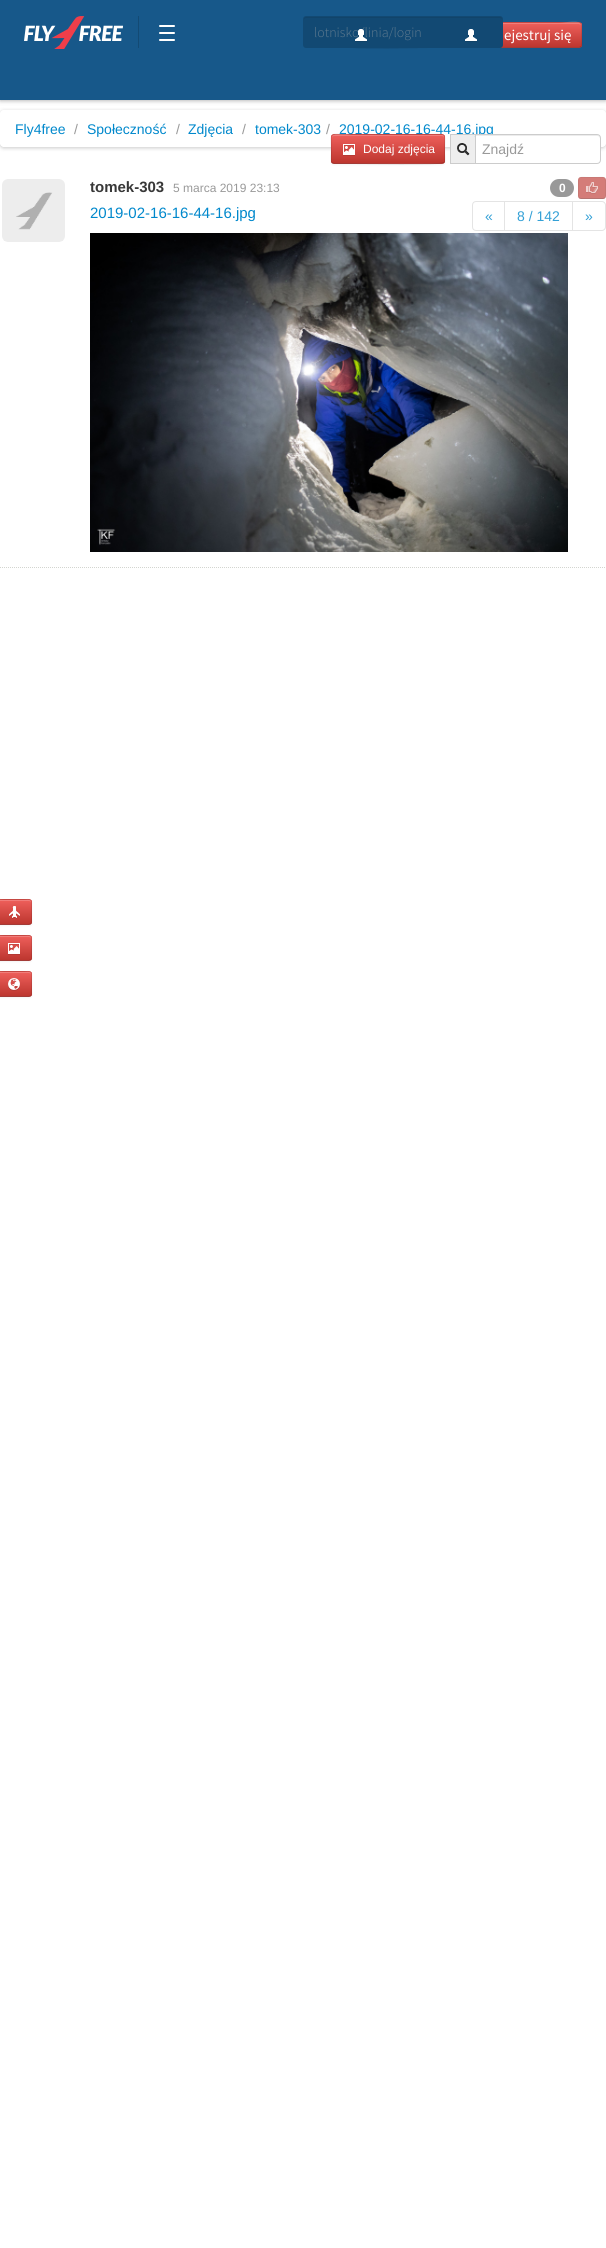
#include <cairo.h>
#include <math.h>
#include <stddef.h>


static void set_color(cairo_t *cr, unsigned color) {
    cairo_set_source_rgb(cr, (color >> 16) / 255.0, (color >> 8 & 255) / 255.0, (color & 255) / 255.0);
}

static void draw_text(cairo_t *cr, double x, double y, const char *s, const char *family, double size, int italic, int bold, unsigned color) {
    cairo_select_font_face(cr, family, italic ? CAIRO_FONT_SLANT_ITALIC : CAIRO_FONT_SLANT_NORMAL,
        bold ? CAIRO_FONT_WEIGHT_BOLD : CAIRO_FONT_WEIGHT_NORMAL);
    cairo_set_font_size(cr, size);
    set_color(cr, color);
    cairo_move_to(cr, x, y);
    cairo_show_text(cr, s);
}

static void fill_rect(cairo_t *cr, double x, double y, double w, double h, unsigned color) {
    set_color(cr, color);
    cairo_rectangle(cr, x, y, w, h);
    cairo_fill(cr);
}

static void rounded_rect(cairo_t *cr, double x, double y, double w, double h, double r) {
    cairo_new_sub_path(cr);
    cairo_arc(cr, x + w - r, y + h - r, r, 0, M_PI / 2);
    cairo_arc(cr, x + r, y + h - r, r, M_PI / 2, M_PI);
    cairo_arc(cr, x + r, y + r, r, M_PI, 1.5 * M_PI);
    cairo_arc(cr, x + w - r, y + r, r, 1.5 * M_PI, 2 * M_PI);
    cairo_close_path(cr);
}

static void draw_shadow(cairo_t *cr, double x, double y, double w, double h, double r, double blur, double alpha) {
    cairo_push_group_with_content(cr, CAIRO_CONTENT_ALPHA);
    cairo_set_operator(cr, CAIRO_OPERATOR_SOURCE);
    for (int i = 15; i >= -15 && fmin(w, h) + blur * i / 3 > 0; i -= 2) {
        double e = blur * i / 6;
        cairo_set_source_rgba(cr, 0, 0, 0, alpha * erfc((i - 1) / 8.5) / 2);
        rounded_rect(cr, x - e, y - e, w + 2 * e, h + 2 * e, fmax(0, fmin(r + e + blur * .6, fmin(w, h) / 2 + e)));
        cairo_fill(cr);
    }
    cairo_pattern_t *soft = cairo_pop_group(cr);
    cairo_mask(cr, soft);
    cairo_pattern_destroy(soft);
}

static void draw_image(cairo_t *cr, const char *path, double x, double y, double w, double h) {
    cairo_surface_t *image = cairo_image_surface_create_from_png(path);
    cairo_save(cr);
    cairo_set_source_surface(cr, image, x, y);
    cairo_rectangle(cr, x, y, w, h);
    cairo_fill(cr);
    cairo_restore(cr);
    cairo_surface_destroy(image);
}

int main(void) {
    cairo_surface_t *surface = cairo_image_surface_create(CAIRO_FORMAT_RGB24, 606, 2248);
    cairo_t *cr = cairo_create(surface);
    cairo_font_options_t *options = cairo_font_options_create();
    cairo_font_options_set_hint_metrics(options, CAIRO_HINT_METRICS_OFF);
    cairo_font_options_set_hint_style(options, CAIRO_HINT_STYLE_NONE);
    cairo_set_font_options(cr, options);
    cairo_set_miter_limit(cr, 4);
    cairo_pattern_t *gradient;
    set_color(cr, 0xFFFFFF);
    cairo_paint(cr);
    set_color(cr, 0x000000);
    draw_shadow(cr, 0, 0, 606, 100, 0, 2.5, 0.4);
    fill_rect(cr, 0, 0, 606, 100, 0x17588A);
    draw_image(cr, "assets/img1.png", 24, 16, 99, 33);
    fill_rect(cr, 138, 16, 1, 32, 0x134A74);
    set_color(cr, 0xFFFFFF);
    rounded_rect(cr, 159, 39, 16, 2, 1);
    cairo_fill(cr);
    rounded_rect(cr, 159, 25, 16, 2, 1);
    cairo_fill(cr);
    rounded_rect(cr, 159, 32, 16, 2, 1);
    cairo_fill(cr);
    cairo_new_path(cr);
    cairo_move_to(cr, 451, 47);
    cairo_line_to(cr, 449, 47.5);
    cairo_line_to(cr, 432, 47.5);
    cairo_curve_to(cr, 423.5, 47.5, 348.5, 48.5, 346.5, 47);
    cairo_line_to(cr, 346, 47);
    cairo_set_source_rgba(cr, 0, 0, 0, 0.25);
    cairo_set_line_width(cr, 1);
    cairo_stroke(cr);
    set_color(cr, 0xDA4F49);
    rounded_rect(cr, 455, 22, 127, 26, 3);
    cairo_fill(cr);
    cairo_save(cr);
    rounded_rect(cr, 455, 22, 127, 26, 3);
    cairo_clip(cr);
    gradient = cairo_pattern_create_linear(519, 23, 519, 47);
    cairo_pattern_add_color_stop_rgba(gradient, 0, 0.933, 0.373, 0.357, 1);
    cairo_pattern_add_color_stop_rgba(gradient, 1, 0.741, 0.212, 0.184, 1);
    cairo_set_source(cr, gradient);
    cairo_pattern_destroy(gradient);
    cairo_rectangle(cr, 502, 23, 80, 24);
    cairo_fill(cr);
    cairo_restore(cr);
    cairo_set_source_rgba(cr, 1, 1, 1, 0.2);
    cairo_new_path(cr);
    cairo_move_to(cr, 458, 24);
    cairo_line_to(cr, 579, 24);
    cairo_line_to(cr, 581, 25);
    cairo_line_to(cr, 581, 26);
    cairo_curve_to(cr, 581, 18, 565, 23, 559, 23);
    cairo_line_to(cr, 457, 23);
    cairo_curve_to(cr, 456, 24, 456, 25, 456, 26);
    cairo_curve_to(cr, 456, 25, 457, 24, 458, 24);
    cairo_close_path(cr);
    cairo_fill(cr);
    cairo_new_path(cr);
    cairo_move_to(cr, 581, 47);
    cairo_line_to(cr, 579, 47.5);
    cairo_line_to(cr, 458, 47.5);
    cairo_line_to(cr, 456, 47);
    cairo_set_source_rgba(cr, 0, 0, 0, 0.25);
    cairo_stroke(cr);
    cairo_new_path(cr);
    cairo_move_to(cr, 456, 47);
    cairo_curve_to(cr, 454.5, 45, 455.5, 37.5, 455.5, 35);
    cairo_line_to(cr, 455.5, 28.5);
    cairo_curve_to(cr, 455.5, 26.5, 455, 22.5, 458, 22.5);
    cairo_line_to(cr, 579, 22.5);
    cairo_curve_to(cr, 582, 22.5, 581.5, 26.5, 581.5, 28.5);
    cairo_line_to(cr, 581.5, 35);
    cairo_curve_to(cr, 581.5, 37.5, 582.5, 45, 581, 47);
    cairo_set_source_rgba(cr, 0, 0, 0, 0.1);
    cairo_stroke(cr);
    set_color(cr, 0x124973);
    rounded_rect(cr, 303, 16, 200, 32, 3);
    cairo_fill(cr);
    set_color(cr, 0x11446A);
    cairo_new_path(cr);
    cairo_move_to(cr, 306, 18);
    cairo_line_to(cr, 500, 18);
    cairo_line_to(cr, 502, 19);
    cairo_line_to(cr, 502, 20);
    cairo_curve_to(cr, 502, 19, 502, 17, 500, 17);
    cairo_line_to(cr, 306, 17);
    cairo_curve_to(cr, 304, 17, 304, 19, 304, 20);
    cairo_curve_to(cr, 304, 19, 305, 18, 306, 18);
    cairo_close_path(cr);
    cairo_fill(cr);
    draw_text(cr, 314, 37, "lotnisko/linia/login", "Source Sans Pro Light", 14, 0, 0, 0x5E7A8F);
    draw_image(cr, "assets/img2.png", 355, 29, 12, 13);
    draw_image(cr, "assets/img3.png", 465, 29, 12, 13);
    draw_text(cr, 504, 40, "ejestruj się", "Source Sans Pro", 15, 0, 0, 0xFFFFFF);
    cairo_save(cr);
    cairo_set_fill_rule(cr, CAIRO_FILL_RULE_EVEN_ODD);
    cairo_new_path(cr);
    cairo_move_to(cr, 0, 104);
    cairo_line_to(cr, 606, 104);
    cairo_line_to(cr, 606, 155);
    cairo_line_to(cr, 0, 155);
    cairo_close_path(cr);
    cairo_move_to(cr, 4, 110);
    cairo_line_to(cr, 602, 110);
    cairo_curve_to(cr, 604, 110, 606, 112, 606, 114);
    cairo_line_to(cr, 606, 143);
    cairo_curve_to(cr, 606, 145, 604, 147, 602, 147);
    cairo_line_to(cr, 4, 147);
    cairo_curve_to(cr, 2, 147, 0, 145, 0, 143);
    cairo_line_to(cr, 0, 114);
    cairo_curve_to(cr, 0, 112, 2, 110, 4, 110);
    cairo_close_path(cr);
    cairo_clip(cr);
    set_color(cr, 0x000000);
    draw_shadow(cr, 0, 111, 606, 37, 4, 2, 0.22);
    cairo_restore(cr);
    draw_text(cr, 15, 134, "Fly4free", "Liberation Sans", 14, 0, 0, 0x0088CC);
    draw_text(cr, 74, 134, "/", "Liberation Sans", 14, 0, 0, 0x999999);
    draw_text(cr, 87, 134, "Społeczność", "Liberation Sans", 14, 0, 0, 0x0088CC);
    draw_text(cr, 176, 134, "/", "Liberation Sans", 14, 0, 0, 0x999999);
    draw_text(cr, 188, 134, "Zdjęcia", "Liberation Sans", 14, 0, 0, 0x0088CC);
    draw_text(cr, 242, 134, "/", "Liberation Sans", 14, 0, 0, 0x999999);
    draw_text(cr, 255, 134, "tomek-303", "Liberation Sans", 14, 0, 0, 0x0088CC);
    set_color(cr, 0x000000);
    draw_shadow(cr, 331, 135, 114, 30, 3, 1, 0.05);
    set_color(cr, 0xDA4F49);
    rounded_rect(cr, 331, 134, 114, 30, 3);
    cairo_fill(cr);
    cairo_save(cr);
    rounded_rect(cr, 331, 134, 114, 30, 3);
    cairo_clip(cr);
    gradient = cairo_pattern_create_linear(388, 135, 388, 163);
    cairo_pattern_add_color_stop_rgba(gradient, 0, 0.933, 0.373, 0.357, 1);
    cairo_pattern_add_color_stop_rgba(gradient, 1, 0.741, 0.212, 0.184, 1);
    cairo_set_source(cr, gradient);
    cairo_pattern_destroy(gradient);
    cairo_rectangle(cr, 331, 135, 114, 28);
    cairo_fill(cr);
    cairo_restore(cr);
    cairo_set_source_rgba(cr, 1, 1, 1, 0.2);
    cairo_new_path(cr);
    cairo_move_to(cr, 334, 136);
    cairo_line_to(cr, 442, 136);
    cairo_curve_to(cr, 443, 136, 444, 137, 444, 138);
    cairo_curve_to(cr, 444, 137, 444, 135, 442, 135);
    cairo_line_to(cr, 352, 135);
    cairo_curve_to(cr, 352, 135, 332, 130, 332, 138);
    cairo_curve_to(cr, 332, 137, 333, 136, 334, 136);
    cairo_close_path(cr);
    cairo_fill(cr);
    cairo_new_path(cr);
    cairo_move_to(cr, 444, 163);
    cairo_line_to(cr, 443.5, 163);
    cairo_curve_to(cr, 441.5, 164.5, 361, 163.5, 352, 163.5);
    cairo_line_to(cr, 334, 163.5);
    cairo_line_to(cr, 332, 163);
    cairo_set_source_rgba(cr, 0, 0, 0, 0.25);
    cairo_stroke(cr);
    cairo_new_path(cr);
    cairo_move_to(cr, 332, 163);
    cairo_curve_to(cr, 330.5, 161, 331.5, 155, 331.5, 153);
    cairo_curve_to(cr, 331.5, 130, 327, 134.5, 352, 134.5);
    cairo_line_to(cr, 424, 134.5);
    cairo_curve_to(cr, 449, 134.5, 444.5, 130, 444.5, 153);
    cairo_curve_to(cr, 444.5, 155, 445.5, 161, 444, 163);
    cairo_set_source_rgba(cr, 0, 0, 0, 0.1);
    cairo_stroke(cr);
    draw_text(cr, 326, 134, "/", "Liberation Sans", 14, 0, 0, 0x999999);
    set_color(cr, 0xEEEEEE);
    cairo_rectangle(cr, 450.5, 134.5, 25, 29);
    cairo_fill_preserve(cr);
    set_color(cr, 0xCCCCCC);
    cairo_stroke(cr);
    draw_text(cr, 339, 134, "2019-02-16-16-44-16.jpg", "Liberation Sans", 14, 0, 0, 0x0088CC);
    draw_image(cr, "assets/img4.png", 343, 144, 12, 12);
    draw_text(cr, 363, 153, "Dodaj zdjęcia", "Liberation Sans", 12, 0, 0, 0xFFFFFF);
    draw_image(cr, "assets/img5.png", 457, 143, 13, 13);
    cairo_new_path(cr);
    cairo_move_to(cr, 475, 134);
    cairo_line_to(cr, 597, 134);
    cairo_curve_to(cr, 599, 134, 601, 136, 601, 138);
    cairo_line_to(cr, 601, 160);
    cairo_curve_to(cr, 601, 162, 599, 164, 597, 164);
    cairo_line_to(cr, 475, 164);
    cairo_close_path(cr);
    cairo_fill(cr);
    set_color(cr, 0xECECEC);
    cairo_new_path(cr);
    cairo_move_to(cr, 476, 136);
    cairo_line_to(cr, 597, 136);
    cairo_curve_to(cr, 599, 136, 600, 137, 600, 139);
    cairo_line_to(cr, 600, 138);
    cairo_curve_to(cr, 600, 136, 599, 135, 597, 135);
    cairo_line_to(cr, 476, 135);
    cairo_close_path(cr);
    cairo_fill(cr);
    cairo_new_path(cr);
    cairo_move_to(cr, 475.5, 134.5);
    cairo_line_to(cr, 597, 134.5);
    cairo_curve_to(cr, 599, 134.5, 600.5, 136, 600.5, 138);
    cairo_line_to(cr, 600.5, 160);
    cairo_curve_to(cr, 600.5, 162, 599, 163.5, 597, 163.5);
    cairo_line_to(cr, 475.5, 163.5);
    cairo_close_path(cr);
    set_color(cr, 0xCCCCCC);
    cairo_stroke(cr);
    draw_text(cr, 482, 154, "Znajdź", "Liberation Sans", 14, 0, 0, 0x999999);
    cairo_new_path(cr);
    cairo_move_to(cr, 0, 567.5);
    cairo_line_to(cr, 606, 567.5);
    set_color(cr, 0xD3D5D0);
    cairo_set_dash(cr, (double[]){1, 1}, 2, 0);
    cairo_stroke(cr);
    draw_image(cr, "assets/img6.png", 2, 179, 63, 63);
    draw_text(cr, 90, 192, "tomek-303", "Liberation Sans", 15, 0, 1, 0x383838);
    draw_text(cr, 173, 192, "5 marca 2019 23:13", "Liberation Sans", 12, 0, 0, 0x999999);
    rounded_rect(cr, 550, 179, 24, 18, 9);
    cairo_fill(cr);
    draw_text(cr, 559, 192, "0", "Liberation Sans", 12, 0, 1, 0xFFFFFF);
    set_color(cr, 0xD47C78);
    rounded_rect(cr, 578, 177, 28, 22, 3);
    cairo_fill(cr);
    cairo_new_path(cr);
    cairo_move_to(cr, 605, 198);
    cairo_curve_to(cr, 604.5, 198, 603.5, 198.5, 603, 198.5);
    cairo_line_to(cr, 581, 198.5);
    cairo_curve_to(cr, 580.5, 198.5, 579.5, 198, 579, 198);
    cairo_set_source_rgba(cr, 0.349, 0.349, 0.349, 0.25);
    cairo_set_dash(cr, NULL, 0, 0);
    cairo_stroke(cr);
    cairo_new_path(cr);
    cairo_move_to(cr, 579, 198);
    cairo_curve_to(cr, 578, 196.5, 578.5, 194.5, 578.5, 193.5);
    cairo_line_to(cr, 578.5, 188);
    cairo_curve_to(cr, 578.5, 174.5, 577.5, 177.5, 592, 177.5);
    cairo_curve_to(cr, 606.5, 177.5, 605.5, 174.5, 605.5, 188);
    cairo_line_to(cr, 605.5, 193.5);
    cairo_curve_to(cr, 605.5, 194.5, 606, 196.5, 605, 198);
    cairo_set_source_rgba(cr, 0.349, 0.349, 0.349, 0.1);
    cairo_stroke(cr);
    draw_image(cr, "assets/img7.png", 586, 182, 12, 12);
    draw_text(cr, 90, 218, "2019-02-16-16-44-16.jpg", "Liberation Sans", 15, 0, 0, 0x0088CC);
    cairo_new_path(cr);
    cairo_move_to(cr, 476, 201.5);
    cairo_line_to(cr, 504.5, 201.5);
    cairo_line_to(cr, 504.5, 230.5);
    cairo_line_to(cr, 476, 230.5);
    cairo_curve_to(cr, 474, 230.5, 472.5, 229, 472.5, 227);
    cairo_line_to(cr, 472.5, 205);
    cairo_curve_to(cr, 472.5, 203, 474, 201.5, 476, 201.5);
    cairo_close_path(cr);
    set_color(cr, 0xE4E4E4);
    cairo_stroke(cr);
    draw_text(cr, 485, 221, "«", "Liberation Sans", 14, 0, 0, 0x33A0D6);
    fill_rect(cr, 505, 201, 68, 1, 0xE4E4E4);
    fill_rect(cr, 572, 201, 1, 30, 0xE4E4E4);
    fill_rect(cr, 505, 230, 68, 1, 0xE4E4E4);
    draw_text(cr, 517, 221, "8 / 142", "Liberation Sans", 14, 0, 0, 0x33A0D6);
    set_color(cr, 0xE4E4E4);
    cairo_set_fill_rule(cr, CAIRO_FILL_RULE_EVEN_ODD);
    cairo_new_path(cr);
    cairo_move_to(cr, 573, 201);
    cairo_line_to(cr, 602, 201);
    cairo_curve_to(cr, 604, 201, 606, 203, 606, 205);
    cairo_line_to(cr, 606, 227);
    cairo_curve_to(cr, 606, 229, 604, 231, 602, 231);
    cairo_line_to(cr, 573, 231);
    cairo_close_path(cr);
    cairo_move_to(cr, 573, 202);
    cairo_line_to(cr, 602, 202);
    cairo_curve_to(cr, 603.5, 202, 605, 203.5, 605, 205);
    cairo_line_to(cr, 605, 227);
    cairo_curve_to(cr, 605, 228.5, 603.5, 230, 602, 230);
    cairo_line_to(cr, 573, 230);
    cairo_close_path(cr);
    cairo_fill(cr);
    draw_text(cr, 585, 221, "»", "Liberation Sans", 14, 0, 0, 0x33A0D6);
    draw_image(cr, "assets/img8.png", 90, 233, 478, 319);
    set_color(cr, 0x000000);
    draw_shadow(cr, -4, 900, 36, 26, 3, 1, 0.05);
    set_color(cr, 0xDA4F49);
    rounded_rect(cr, -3, 899, 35, 26, 3);
    cairo_fill(cr);
    cairo_save(cr);
    cairo_set_fill_rule(cr, CAIRO_FILL_RULE_WINDING);
    rounded_rect(cr, -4, 899, 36, 26, 3);
    cairo_clip(cr);
    gradient = cairo_pattern_create_linear(14, 900, 14, 924);
    cairo_pattern_add_color_stop_rgba(gradient, 0, 0.933, 0.373, 0.357, 1);
    cairo_pattern_add_color_stop_rgba(gradient, 1, 0.741, 0.212, 0.184, 1);
    cairo_set_source(cr, gradient);
    cairo_pattern_destroy(gradient);
    cairo_rectangle(cr, 0, 900, 32, 24);
    cairo_fill(cr);
    cairo_restore(cr);
    set_color(cr, 0xF17E7B);
    cairo_set_fill_rule(cr, CAIRO_FILL_RULE_WINDING);
    cairo_new_path(cr);
    cairo_move_to(cr, -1, 901);
    cairo_line_to(cr, 29, 901);
    cairo_curve_to(cr, 30, 901, 31, 902, 31, 903);
    cairo_curve_to(cr, 31, 898.5, 28, 900, 24, 900);
    cairo_line_to(cr, 4, 900);
    cairo_curve_to(cr, 0, 900, -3, 898.5, -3, 903);
    cairo_curve_to(cr, -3, 902, -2, 901, -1, 901);
    cairo_close_path(cr);
    cairo_fill(cr);
    cairo_new_path(cr);
    cairo_move_to(cr, 31, 924);
    cairo_curve_to(cr, 30.5, 924, 29.5, 924.5, 29, 924.5);
    cairo_line_to(cr, -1, 924.5);
    cairo_curve_to(cr, -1.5, 924.5, -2.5, 924, -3, 924);
    cairo_set_source_rgba(cr, 0, 0, 0, 0.25);
    cairo_stroke(cr);
    cairo_new_path(cr);
    cairo_move_to(cr, -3, 924);
    cairo_curve_to(cr, -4, 922.5, -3.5, 920, -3.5, 918.5);
    cairo_line_to(cr, -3.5, 905.5);
    cairo_curve_to(cr, -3.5, 898.5, -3, 899.5, 4, 899.5);
    cairo_line_to(cr, 24, 899.5);
    cairo_curve_to(cr, 31, 899.5, 31.5, 898.5, 31.5, 905.5);
    cairo_line_to(cr, 31.5, 918.5);
    cairo_curve_to(cr, 31.5, 920, 32, 922.5, 31, 924);
    cairo_set_source_rgba(cr, 0, 0, 0, 0.1);
    cairo_stroke(cr);
    draw_image(cr, "assets/img9.png", 9, 906, 11, 13);
    set_color(cr, 0x000000);
    draw_shadow(cr, -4, 936, 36, 26, 3, 1, 0.05);
    set_color(cr, 0xDA4F49);
    rounded_rect(cr, -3, 935, 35, 26, 3);
    cairo_fill(cr);
    cairo_save(cr);
    rounded_rect(cr, -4, 935, 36, 26, 3);
    cairo_clip(cr);
    gradient = cairo_pattern_create_linear(14, 936, 14, 960);
    cairo_pattern_add_color_stop_rgba(gradient, 0, 0.933, 0.373, 0.357, 1);
    cairo_pattern_add_color_stop_rgba(gradient, 1, 0.741, 0.212, 0.184, 1);
    cairo_set_source(cr, gradient);
    cairo_pattern_destroy(gradient);
    cairo_rectangle(cr, 0, 936, 32, 24);
    cairo_fill(cr);
    cairo_restore(cr);
    set_color(cr, 0xF17E7B);
    cairo_new_path(cr);
    cairo_move_to(cr, -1, 937);
    cairo_line_to(cr, 29, 937);
    cairo_curve_to(cr, 30, 937, 31, 938, 31, 939);
    cairo_curve_to(cr, 31, 934.5, 28, 936, 24, 936);
    cairo_line_to(cr, 4, 936);
    cairo_curve_to(cr, 0, 936, -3, 934.5, -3, 939);
    cairo_curve_to(cr, -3, 938, -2, 937, -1, 937);
    cairo_close_path(cr);
    cairo_fill(cr);
    cairo_new_path(cr);
    cairo_move_to(cr, 31, 960);
    cairo_curve_to(cr, 30.5, 960, 29.5, 960.5, 29, 960.5);
    cairo_line_to(cr, -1, 960.5);
    cairo_curve_to(cr, -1.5, 960.5, -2.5, 960, -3, 960);
    cairo_set_source_rgba(cr, 0, 0, 0, 0.25);
    cairo_stroke(cr);
    cairo_new_path(cr);
    cairo_move_to(cr, -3, 960);
    cairo_curve_to(cr, -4, 958.5, -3.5, 956, -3.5, 954.5);
    cairo_line_to(cr, -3.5, 941.5);
    cairo_curve_to(cr, -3.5, 934.5, -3, 935.5, 4, 935.5);
    cairo_line_to(cr, 24, 935.5);
    cairo_curve_to(cr, 31, 935.5, 31.5, 934.5, 31.5, 941.5);
    cairo_line_to(cr, 31.5, 954.5);
    cairo_curve_to(cr, 31.5, 956, 32, 958.5, 31, 960);
    cairo_set_source_rgba(cr, 0, 0, 0, 0.1);
    cairo_stroke(cr);
    draw_image(cr, "assets/img10.png", 8, 943, 12, 12);
    set_color(cr, 0x000000);
    draw_shadow(cr, -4, 972, 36, 26, 3, 1, 0.05);
    set_color(cr, 0xDA4F49);
    rounded_rect(cr, -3, 971, 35, 26, 3);
    cairo_fill(cr);
    cairo_save(cr);
    rounded_rect(cr, -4, 971, 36, 26, 3);
    cairo_clip(cr);
    gradient = cairo_pattern_create_linear(14, 972, 14, 996);
    cairo_pattern_add_color_stop_rgba(gradient, 0, 0.933, 0.373, 0.357, 1);
    cairo_pattern_add_color_stop_rgba(gradient, 1, 0.741, 0.212, 0.184, 1);
    cairo_set_source(cr, gradient);
    cairo_pattern_destroy(gradient);
    cairo_rectangle(cr, 0, 972, 32, 24);
    cairo_fill(cr);
    cairo_restore(cr);
    set_color(cr, 0xF17E7B);
    cairo_new_path(cr);
    cairo_move_to(cr, -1, 973);
    cairo_line_to(cr, 29, 973);
    cairo_curve_to(cr, 30, 973, 31, 974, 31, 975);
    cairo_curve_to(cr, 31, 970.5, 28, 972, 24, 972);
    cairo_line_to(cr, 4, 972);
    cairo_curve_to(cr, 0, 972, -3, 970.5, -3, 975);
    cairo_curve_to(cr, -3, 974, -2, 973, -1, 973);
    cairo_close_path(cr);
    cairo_fill(cr);
    cairo_new_path(cr);
    cairo_move_to(cr, 31, 996);
    cairo_curve_to(cr, 30.5, 996, 29.5, 996.5, 29, 996.5);
    cairo_line_to(cr, -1, 996.5);
    cairo_curve_to(cr, -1.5, 996.5, -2.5, 996, -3, 996);
    cairo_set_source_rgba(cr, 0, 0, 0, 0.25);
    cairo_stroke(cr);
    cairo_new_path(cr);
    cairo_move_to(cr, -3, 996);
    cairo_curve_to(cr, -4, 994.5, -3.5, 992, -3.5, 990.5);
    cairo_line_to(cr, -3.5, 977.5);
    cairo_curve_to(cr, -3.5, 970.5, -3, 971.5, 4, 971.5);
    cairo_line_to(cr, 24, 971.5);
    cairo_curve_to(cr, 31, 971.5, 31.5, 970.5, 31.5, 977.5);
    cairo_line_to(cr, 31.5, 990.5);
    cairo_curve_to(cr, 31.5, 992, 32, 994.5, 31, 996);
    cairo_set_source_rgba(cr, 0, 0, 0, 0.1);
    cairo_stroke(cr);
    draw_image(cr, "assets/img11.png", 8, 978, 12, 13);
    cairo_surface_write_to_png(surface, "output.png");
    cairo_font_options_destroy(options);
    cairo_destroy(cr);
    cairo_surface_destroy(surface);
    return 0;
}
